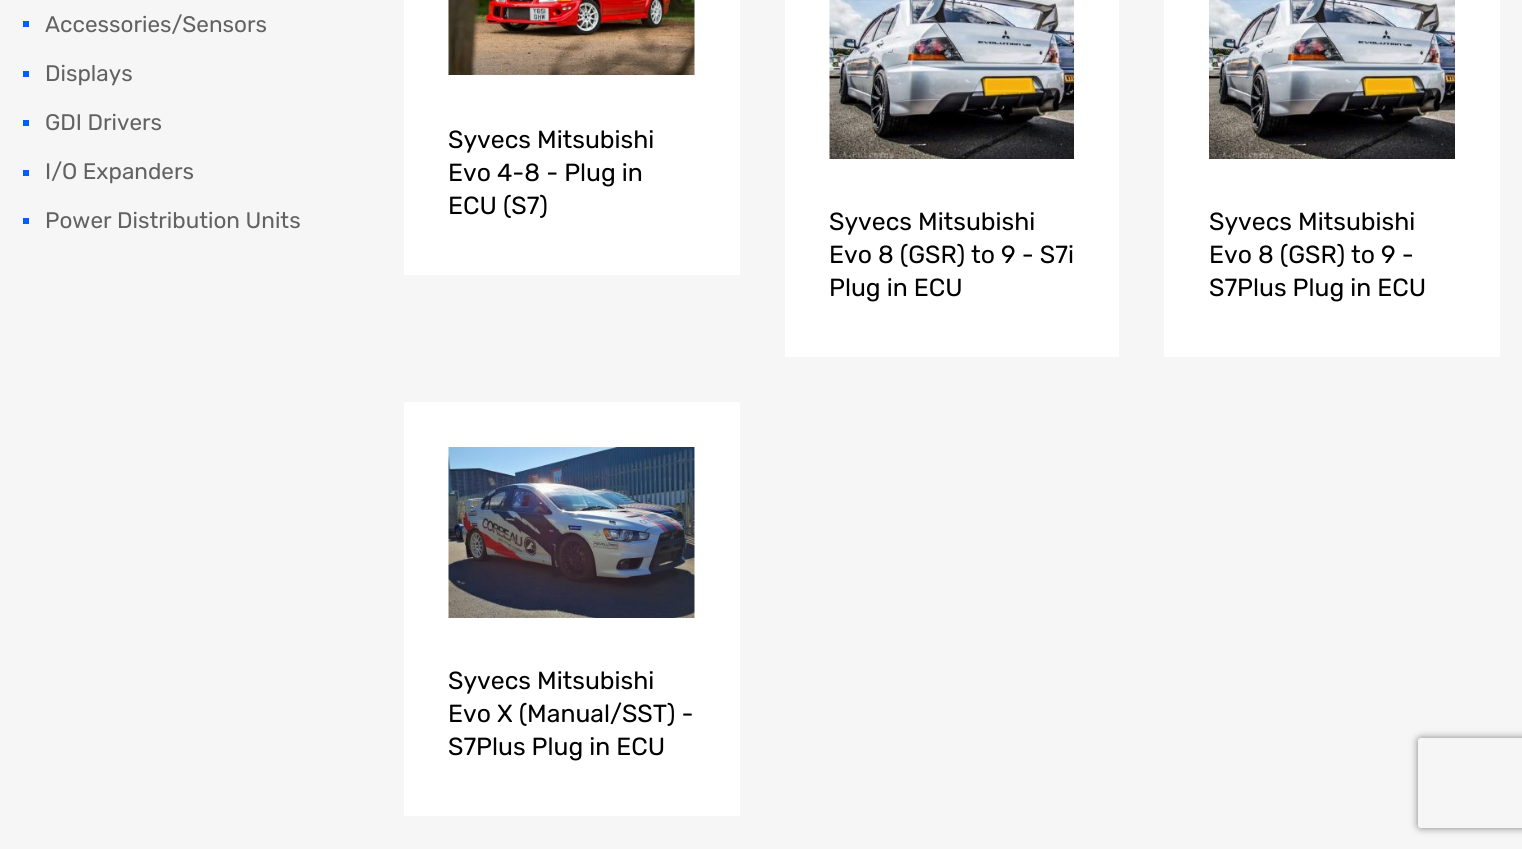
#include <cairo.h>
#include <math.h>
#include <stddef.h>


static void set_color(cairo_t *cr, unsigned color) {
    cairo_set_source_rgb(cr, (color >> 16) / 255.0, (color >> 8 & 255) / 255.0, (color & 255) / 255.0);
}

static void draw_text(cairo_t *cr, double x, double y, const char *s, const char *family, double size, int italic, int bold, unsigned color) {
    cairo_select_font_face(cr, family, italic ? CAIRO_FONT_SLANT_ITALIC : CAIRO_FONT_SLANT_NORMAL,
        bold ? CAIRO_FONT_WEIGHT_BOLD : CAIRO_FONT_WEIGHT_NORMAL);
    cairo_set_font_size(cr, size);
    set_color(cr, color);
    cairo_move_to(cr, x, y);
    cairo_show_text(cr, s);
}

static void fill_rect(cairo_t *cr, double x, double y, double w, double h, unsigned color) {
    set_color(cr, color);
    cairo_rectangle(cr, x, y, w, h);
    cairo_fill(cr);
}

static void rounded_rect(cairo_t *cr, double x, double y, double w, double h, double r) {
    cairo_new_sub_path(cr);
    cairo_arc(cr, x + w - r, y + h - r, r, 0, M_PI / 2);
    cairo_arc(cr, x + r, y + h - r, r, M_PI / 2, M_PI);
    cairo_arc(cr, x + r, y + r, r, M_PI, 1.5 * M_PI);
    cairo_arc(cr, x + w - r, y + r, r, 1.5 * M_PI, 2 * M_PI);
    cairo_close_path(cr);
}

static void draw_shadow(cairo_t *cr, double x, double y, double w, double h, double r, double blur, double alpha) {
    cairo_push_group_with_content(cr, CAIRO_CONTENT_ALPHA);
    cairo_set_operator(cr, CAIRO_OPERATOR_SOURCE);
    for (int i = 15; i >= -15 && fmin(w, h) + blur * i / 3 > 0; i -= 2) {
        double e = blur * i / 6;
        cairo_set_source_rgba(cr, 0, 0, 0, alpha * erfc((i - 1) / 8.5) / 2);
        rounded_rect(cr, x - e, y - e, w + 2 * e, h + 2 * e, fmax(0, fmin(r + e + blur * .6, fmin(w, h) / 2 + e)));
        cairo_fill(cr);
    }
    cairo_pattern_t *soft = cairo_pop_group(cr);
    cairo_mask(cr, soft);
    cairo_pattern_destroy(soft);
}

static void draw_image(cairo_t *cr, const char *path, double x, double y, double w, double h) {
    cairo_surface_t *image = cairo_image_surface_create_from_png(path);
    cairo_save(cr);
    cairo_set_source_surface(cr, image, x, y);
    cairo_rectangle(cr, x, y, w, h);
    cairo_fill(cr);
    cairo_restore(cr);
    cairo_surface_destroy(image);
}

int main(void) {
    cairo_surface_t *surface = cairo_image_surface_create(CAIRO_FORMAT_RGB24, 1522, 849);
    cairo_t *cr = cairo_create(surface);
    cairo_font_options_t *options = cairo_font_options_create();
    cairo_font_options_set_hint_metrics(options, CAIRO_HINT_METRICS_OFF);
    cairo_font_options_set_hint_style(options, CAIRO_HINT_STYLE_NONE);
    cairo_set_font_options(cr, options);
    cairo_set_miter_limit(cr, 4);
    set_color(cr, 0xF6F6F6);
    cairo_paint(cr);
    fill_rect(cr, 23, 21, 6, 6, 0x005DFF);
    draw_text(cr, 45, 32, "Accessories/Sensors", "Rubik", 22.5, 0, 0, 0x626262);
    fill_rect(cr, 23, 71, 6, 6, 0x005DFF);
    draw_text(cr, 45, 81, "Displays", "Rubik", 22.5, 0, 0, 0x626262);
    fill_rect(cr, 23, 120, 6, 6, 0x005DFF);
    draw_text(cr, 45, 130, "GDI Drivers", "Rubik", 22.5, 0, 0, 0x626262);
    fill_rect(cr, 23, 170, 6, 6, 0x005DFF);
    draw_text(cr, 45, 179, "I/O Expanders", "Rubik", 22.5, 0, 0, 0x626262);
    fill_rect(cr, 23, 218, 6, 6, 0x005DFF);
    draw_text(cr, 45, 228, "Power Distribution Units", "Rubik", 22.5, 0, 0, 0x626262);
    fill_rect(cr, 404, 0, 336, 275, 0xFFFFFF);
    draw_image(cr, "assets/img1.png", 448, 0, 247, 75);
    draw_text(cr, 448, 148, "Syvecs Mitsubishi", "Rubik", 24.75, 0, 0, 0x000000);
    draw_text(cr, 448, 181, "Evo 4-8 - Plug in", "Rubik", 24.75, 0, 0, 0x000000);
    draw_text(cr, 448, 214, "ECU (S7)", "Rubik", 24.75, 0, 0, 0x000000);
    fill_rect(cr, 785, 0, 334, 357, 0xFFFFFF);
    draw_image(cr, "assets/img2.png", 829, 0, 245, 159);
    draw_text(cr, 829, 230, "Syvecs Mitsubishi", "Rubik", 24.75, 0, 0, 0x000000);
    draw_text(cr, 829, 263, "Evo 8 (GSR) to 9 - S7i", "Rubik", 24.75, 0, 0, 0x000000);
    draw_text(cr, 829, 296, "Plug in ECU", "Rubik", 24.75, 0, 0, 0x000000);
    fill_rect(cr, 1164, 0, 336, 357, 0xFFFFFF);
    draw_image(cr, "assets/img3.png", 1209, 0, 246, 159);
    draw_text(cr, 1209, 230, "Syvecs Mitsubishi", "Rubik", 24.75, 0, 0, 0x000000);
    draw_text(cr, 1209, 263, "Evo 8 (GSR) to 9 -", "Rubik", 24.75, 0, 0, 0x000000);
    draw_text(cr, 1209, 296, "S7Plus Plug in ECU", "Rubik", 24.75, 0, 0, 0x000000);
    fill_rect(cr, 404, 402, 336, 414, 0xFFFFFF);
    draw_image(cr, "assets/img4.png", 448, 447, 247, 171);
    draw_text(cr, 448, 689, "Syvecs Mitsubishi", "Rubik", 24.75, 0, 0, 0x000000);
    draw_text(cr, 448, 722, "Evo X (Manual/SST) -", "Rubik", 24.75, 0, 0, 0x000000);
    draw_text(cr, 448, 755, "S7Plus Plug in ECU", "Rubik", 24.75, 0, 0, 0x000000);
    cairo_save(cr);
    cairo_set_fill_rule(cr, CAIRO_FILL_RULE_EVEN_ODD);
    cairo_new_path(cr);
    cairo_move_to(cr, 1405, 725);
    cairo_line_to(cr, 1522, 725);
    cairo_line_to(cr, 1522, 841);
    cairo_line_to(cr, 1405, 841);
    cairo_close_path(cr);
    cairo_move_to(cr, 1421, 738);
    cairo_line_to(cr, 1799, 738);
    cairo_curve_to(cr, 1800.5, 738, 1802, 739.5, 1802, 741);
    cairo_line_to(cr, 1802, 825);
    cairo_curve_to(cr, 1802, 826.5, 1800.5, 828, 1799, 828);
    cairo_line_to(cr, 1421, 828);
    cairo_curve_to(cr, 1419.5, 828, 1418, 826.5, 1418, 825);
    cairo_line_to(cr, 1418, 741);
    cairo_curve_to(cr, 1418, 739.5, 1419.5, 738, 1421, 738);
    cairo_close_path(cr);
    cairo_clip(cr);
    set_color(cr, 0x808080);
    draw_shadow(cr, 1418, 738, 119, 90, 3, 4, 1);
    cairo_restore(cr);
    cairo_surface_write_to_png(surface, "output.png");
    cairo_font_options_destroy(options);
    cairo_destroy(cr);
    cairo_surface_destroy(surface);
    return 0;
}
